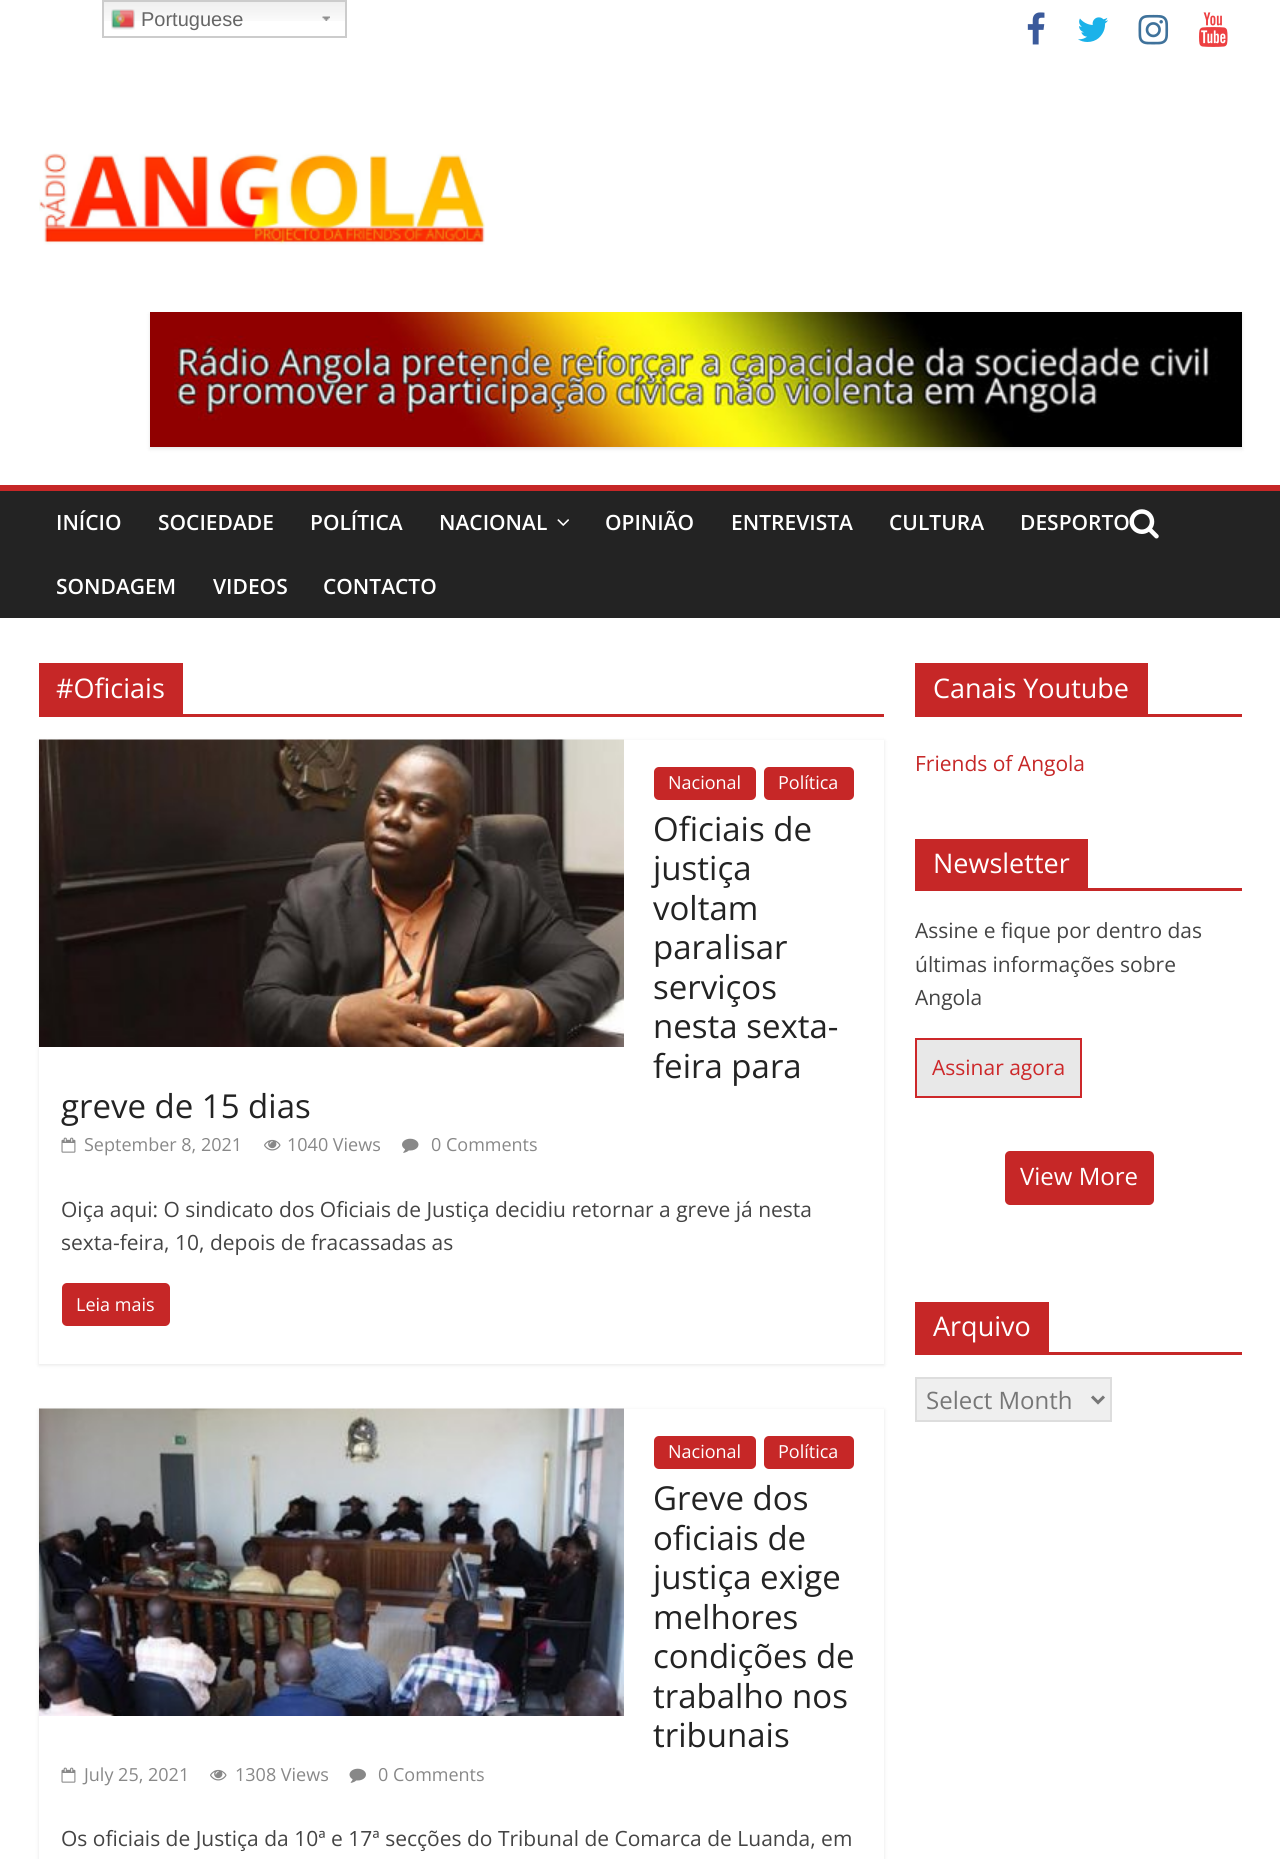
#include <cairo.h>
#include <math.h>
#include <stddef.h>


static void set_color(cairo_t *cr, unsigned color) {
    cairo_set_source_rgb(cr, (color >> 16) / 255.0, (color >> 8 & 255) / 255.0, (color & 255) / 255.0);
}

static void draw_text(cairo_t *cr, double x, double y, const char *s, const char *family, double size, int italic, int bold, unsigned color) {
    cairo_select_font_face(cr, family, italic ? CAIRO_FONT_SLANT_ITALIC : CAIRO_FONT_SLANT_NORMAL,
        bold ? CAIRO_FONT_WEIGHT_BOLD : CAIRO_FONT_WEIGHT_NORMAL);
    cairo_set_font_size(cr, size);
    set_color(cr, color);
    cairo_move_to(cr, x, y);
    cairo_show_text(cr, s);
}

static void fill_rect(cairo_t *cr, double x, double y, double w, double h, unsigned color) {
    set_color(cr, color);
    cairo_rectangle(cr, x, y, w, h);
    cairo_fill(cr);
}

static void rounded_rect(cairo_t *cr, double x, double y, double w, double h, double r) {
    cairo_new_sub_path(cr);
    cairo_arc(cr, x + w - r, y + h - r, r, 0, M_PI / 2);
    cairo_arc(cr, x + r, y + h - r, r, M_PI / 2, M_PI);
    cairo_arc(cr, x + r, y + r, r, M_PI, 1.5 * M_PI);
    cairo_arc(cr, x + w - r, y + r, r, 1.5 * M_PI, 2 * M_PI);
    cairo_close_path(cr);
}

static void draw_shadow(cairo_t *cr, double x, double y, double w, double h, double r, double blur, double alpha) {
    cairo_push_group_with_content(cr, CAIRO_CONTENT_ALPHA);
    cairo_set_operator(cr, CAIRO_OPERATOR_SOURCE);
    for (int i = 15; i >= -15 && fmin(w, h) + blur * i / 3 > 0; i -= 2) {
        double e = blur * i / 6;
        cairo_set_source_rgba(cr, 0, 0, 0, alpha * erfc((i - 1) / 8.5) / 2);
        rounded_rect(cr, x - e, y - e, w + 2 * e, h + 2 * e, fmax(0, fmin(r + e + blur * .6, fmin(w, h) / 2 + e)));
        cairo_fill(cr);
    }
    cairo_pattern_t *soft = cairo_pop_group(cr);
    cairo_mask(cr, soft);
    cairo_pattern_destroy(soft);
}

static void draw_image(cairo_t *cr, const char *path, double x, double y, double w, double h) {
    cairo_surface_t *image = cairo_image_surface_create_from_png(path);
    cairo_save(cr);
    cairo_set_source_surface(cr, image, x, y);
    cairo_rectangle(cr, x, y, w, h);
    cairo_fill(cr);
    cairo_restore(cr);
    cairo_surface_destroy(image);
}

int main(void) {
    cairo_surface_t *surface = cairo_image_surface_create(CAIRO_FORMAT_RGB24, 1280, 1859);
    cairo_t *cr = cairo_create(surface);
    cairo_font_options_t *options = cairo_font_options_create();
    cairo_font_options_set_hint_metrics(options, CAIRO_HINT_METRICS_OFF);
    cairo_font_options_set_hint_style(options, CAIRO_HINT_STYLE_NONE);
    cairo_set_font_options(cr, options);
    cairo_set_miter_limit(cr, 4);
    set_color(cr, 0xFFFFFF);
    cairo_paint(cr);
    draw_image(cr, "assets/img1.png", 104, 2, 241, 19);
    draw_image(cr, "assets/img2.png", 322, 16, 8, 5);
    cairo_rectangle(cr, 103, 1, 243, 36);
    set_color(cr, 0xCCCCCC);
    cairo_stroke(cr);
    draw_image(cr, "assets/img3.png", 111, 9, 24, 21);
    draw_text(cr, 141, 26, "Portuguese", "Liberation Sans", 20, 0, 0, 0x666666);
    draw_image(cr, "assets/img4.png", 1027, 12, 18, 33);
    draw_image(cr, "assets/img5.png", 1078, 17, 30, 25);
    draw_image(cr, "assets/img6.png", 1138, 14, 31, 31);
    draw_image(cr, "assets/img7.png", 1199, 12, 29, 35);
    draw_image(cr, "assets/img8.png", 39, 153, 446, 92);
    set_color(cr, 0x000000);
    draw_shadow(cr, 150, 314, 1092, 135, 0, 2, 0.1);
    draw_image(cr, "assets/img9.png", 150, 312, 1092, 135);
    fill_rect(cr, 0, 491, 1280, 127, 0x232323);
    fill_rect(cr, 0, 485, 1280, 6, 0xC62727);
    draw_text(cr, 56, 530, "INÍCIO", "Open Sans SemiBold", 21, 0, 0, 0xFFFFFF);
    draw_text(cr, 158, 530, "SOCIEDADE", "Open Sans SemiBold", 21, 0, 0, 0xFFFFFF);
    draw_text(cr, 310, 530, "POLÍTICA", "Open Sans SemiBold", 21, 0, 0, 0xFFFFFF);
    draw_text(cr, 439, 530, "NACIONAL", "Open Sans SemiBold", 21, 0, 0, 0xFFFFFF);
    draw_image(cr, "assets/img10.png", 557, 519, 12, 7);
    draw_text(cr, 605, 530, "OPINIÃO", "Open Sans SemiBold", 21, 0, 0, 0xFFFFFF);
    draw_text(cr, 731, 530, "ENTREVISTA", "Open Sans SemiBold", 21, 0, 0, 0xFFFFFF);
    draw_text(cr, 889, 530, "CULTURA", "Open Sans SemiBold", 21, 0, 0, 0xFFFFFF);
    draw_text(cr, 1020, 530, "DESPORTO", "Open Sans SemiBold", 21, 0, 0, 0xFFFFFF);
    draw_text(cr, 56, 594, "SONDAGEM", "Open Sans SemiBold", 21, 0, 0, 0xFFFFFF);
    draw_text(cr, 213, 594, "VIDEOS", "Open Sans SemiBold", 21, 0, 0, 0xFFFFFF);
    draw_text(cr, 323, 594, "CONTACTO", "Open Sans SemiBold", 21, 0, 0, 0xFFFFFF);
    draw_image(cr, "assets/img11.png", 1129, 509, 30, 30);
    fill_rect(cr, 39, 714, 845, 3, 0xC62727);
    fill_rect(cr, 39, 663, 144, 51, 0xC62727);
    draw_text(cr, 56, 698, "#Oficiais", "Open Sans", 27, 0, 0, 0xFFFFFF);
    cairo_save(cr);
    cairo_set_fill_rule(cr, CAIRO_FILL_RULE_EVEN_ODD);
    cairo_new_path(cr);
    cairo_move_to(cr, 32, 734);
    cairo_line_to(cr, 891, 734);
    cairo_line_to(cr, 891, 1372);
    cairo_line_to(cr, 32, 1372);
    cairo_close_path(cr);
    cairo_move_to(cr, 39, 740);
    cairo_line_to(cr, 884, 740);
    cairo_line_to(cr, 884, 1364);
    cairo_line_to(cr, 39, 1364);
    cairo_close_path(cr);
    cairo_clip(cr);
    set_color(cr, 0x000000);
    draw_shadow(cr, 39, 741, 845, 624, 0, 2, 0.1);
    cairo_restore(cr);
    draw_image(cr, "assets/img12.png", 39, 739, 585, 308);
    set_color(cr, 0xC62727);
    rounded_rect(cr, 654, 767, 102, 33, 5);
    cairo_fill(cr);
    draw_text(cr, 668, 789, "Nacional", "Open Sans", 18, 0, 0, 0xFFFFFF);
    set_color(cr, 0xC62727);
    rounded_rect(cr, 764, 767, 90, 33, 5);
    cairo_fill(cr);
    draw_text(cr, 778, 789, "Política", "Open Sans", 18, 0, 0, 0xFFFFFF);
    draw_text(cr, 653, 841, "Oficiais de", "Open Sans", 33, 0, 0, 0x232323);
    draw_text(cr, 653, 880, "justiça", "Open Sans", 33, 0, 0, 0x232323);
    draw_text(cr, 653, 920, "voltam", "Open Sans", 33, 0, 0, 0x232323);
    draw_text(cr, 653, 959, "paralisar", "Open Sans", 33, 0, 0, 0x232323);
    draw_text(cr, 653, 999, "serviços", "Open Sans", 33, 0, 0, 0x232323);
    draw_text(cr, 653, 1038, "nesta sexta-", "Open Sans", 33, 0, 0, 0x232323);
    draw_text(cr, 653, 1078, "feira para", "Open Sans", 33, 0, 0, 0x232323);
    draw_text(cr, 61, 1118, "greve de 15 dias", "Open Sans", 33, 0, 0, 0x232323);
    draw_image(cr, "assets/img13.png", 61, 1137, 15, 16);
    draw_text(cr, 84, 1151, "September 8, 2021", "Open Sans", 18, 0, 0, 0x888888);
    draw_image(cr, "assets/img14.png", 264, 1139, 17, 12);
    draw_text(cr, 287, 1151, "1040 Views", "Open Sans", 18, 0, 0, 0x888888);
    draw_image(cr, "assets/img15.png", 402, 1138, 17, 15);
    draw_text(cr, 431, 1151, "0 Comments", "Open Sans", 18, 0, 0, 0x888888);
    draw_text(cr, 61, 1217, "Oiça aqui: O sindicato dos Oficiais de Justiça decidiu retornar a greve já nesta", "Open Sans", 21, 0, 0, 0x444444);
    draw_text(cr, 61, 1250, "sexta-feira, 10, depois de fracassadas as", "Open Sans", 21, 0, 0, 0x444444);
    set_color(cr, 0xC62727);
    rounded_rect(cr, 62, 1283, 108, 43, 5);
    cairo_fill(cr);
    draw_text(cr, 76, 1311, "Leia mais", "Open Sans", 18, 0, 0, 0xFFFFFF);
    cairo_save(cr);
    cairo_set_fill_rule(cr, CAIRO_FILL_RULE_EVEN_ODD);
    cairo_new_path(cr);
    cairo_move_to(cr, 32, 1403);
    cairo_line_to(cr, 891, 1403);
    cairo_line_to(cr, 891, 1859);
    cairo_line_to(cr, 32, 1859);
    cairo_close_path(cr);
    cairo_move_to(cr, 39, 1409);
    cairo_line_to(cr, 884, 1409);
    cairo_line_to(cr, 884, 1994);
    cairo_line_to(cr, 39, 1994);
    cairo_close_path(cr);
    cairo_clip(cr);
    set_color(cr, 0x000000);
    draw_shadow(cr, 39, 1410, 845, 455, 0, 2, 0.1);
    cairo_restore(cr);
    draw_image(cr, "assets/img16.png", 39, 1408, 585, 308);
    set_color(cr, 0xC62727);
    rounded_rect(cr, 654, 1436, 102, 33, 5);
    cairo_fill(cr);
    draw_text(cr, 668, 1458, "Nacional", "Open Sans", 18, 0, 0, 0xFFFFFF);
    set_color(cr, 0xC62727);
    rounded_rect(cr, 764, 1436, 90, 33, 5);
    cairo_fill(cr);
    draw_text(cr, 778, 1458, "Política", "Open Sans", 18, 0, 0, 0xFFFFFF);
    draw_text(cr, 653, 1510, "Greve dos", "Open Sans", 33, 0, 0, 0x232323);
    draw_text(cr, 653, 1550, "oficiais de", "Open Sans", 33, 0, 0, 0x232323);
    draw_text(cr, 653, 1589, "justiça exige", "Open Sans", 33, 0, 0, 0x232323);
    draw_text(cr, 653, 1629, "melhores", "Open Sans", 33, 0, 0, 0x232323);
    draw_text(cr, 653, 1668, "condições de", "Open Sans", 33, 0, 0, 0x232323);
    draw_text(cr, 653, 1708, "trabalho nos", "Open Sans", 33, 0, 0, 0x232323);
    draw_text(cr, 653, 1747, "tribunais", "Open Sans", 33, 0, 0, 0x232323);
    draw_image(cr, "assets/img13.png", 61, 1767, 15, 16);
    draw_text(cr, 84, 1781, "July 25, 2021", "Open Sans", 18, 0, 0, 0x888888);
    draw_image(cr, "assets/img14.png", 210, 1769, 17, 12);
    draw_text(cr, 235, 1781, "1308 Views", "Open Sans", 18, 0, 0, 0x888888);
    draw_image(cr, "assets/img17.png", 349, 1768, 17, 15);
    draw_text(cr, 378, 1781, "0 Comments", "Open Sans", 18, 0, 0, 0x888888);
    draw_text(cr, 61, 1846, "Os oficiais de Justiça da 10ª e 17ª secções do Tribunal de Comarca de Luanda, em", "Open Sans", 21, 0, 0, 0x444444);
    fill_rect(cr, 915, 714, 327, 3, 0xC62727);
    fill_rect(cr, 915, 663, 233, 51, 0xC62727);
    draw_text(cr, 933, 698, "Canais Youtube", "Open Sans", 27, 0, 0, 0xFFFFFF);
    draw_text(cr, 915, 771, "Friends of Angola", "Open Sans", 21, 0, 0, 0xC62727);
    fill_rect(cr, 915, 888, 327, 3, 0xC62727);
    fill_rect(cr, 915, 839, 173, 49, 0xC62727);
    draw_text(cr, 933, 873, "Newsletter", "Open Sans", 27, 0, 0, 0xFFFFFF);
    draw_text(cr, 915, 938, "Assine e fique por dentro das", "Open Sans", 21, 0, 0, 0x444444);
    draw_text(cr, 915, 972, "últimas informações sobre", "Open Sans", 21, 0, 0, 0x444444);
    draw_text(cr, 915, 1005, "Angola", "Open Sans", 21, 0, 0, 0x444444);
    set_color(cr, 0xE8E8E8);
    cairo_rectangle(cr, 916, 1039, 165, 58);
    cairo_fill_preserve(cr);
    set_color(cr, 0xCD282A);
    cairo_stroke(cr);
    draw_text(cr, 932, 1075, "Assinar agora", "Open Sans", 21, 0, 0, 0xCD282A);
    set_color(cr, 0xC62727);
    rounded_rect(cr, 1005, 1151, 149, 54, 5);
    cairo_fill(cr);
    draw_text(cr, 1020, 1185, "View More", "Open Sans", 24, 0, 0, 0xFFFFFF);
    fill_rect(cr, 915, 1352, 327, 3, 0xC62727);
    fill_rect(cr, 915, 1302, 134, 50, 0xC62727);
    draw_text(cr, 933, 1336, "Arquivo", "Open Sans", 27, 0, 0, 0xFFFFFF);
    set_color(cr, 0xEFEFEF);
    cairo_rectangle(cr, 916, 1378, 195, 43);
    cairo_fill_preserve(cr);
    set_color(cr, 0xDDDDDD);
    cairo_stroke(cr);
    cairo_new_path(cr);
    cairo_move_to(cr, 1092, 1396.5);
    cairo_line_to(cr, 1098, 1402.5);
    cairo_line_to(cr, 1104, 1396.5);
    set_color(cr, 0x777777);
    cairo_set_line_width(cr, 3);
    cairo_stroke(cr);
    draw_text(cr, 926, 1409, "Select Month", "Open Sans", 24, 0, 0, 0x777777);
    cairo_surface_write_to_png(surface, "output.png");
    cairo_font_options_destroy(options);
    cairo_destroy(cr);
    cairo_surface_destroy(surface);
    return 0;
}
